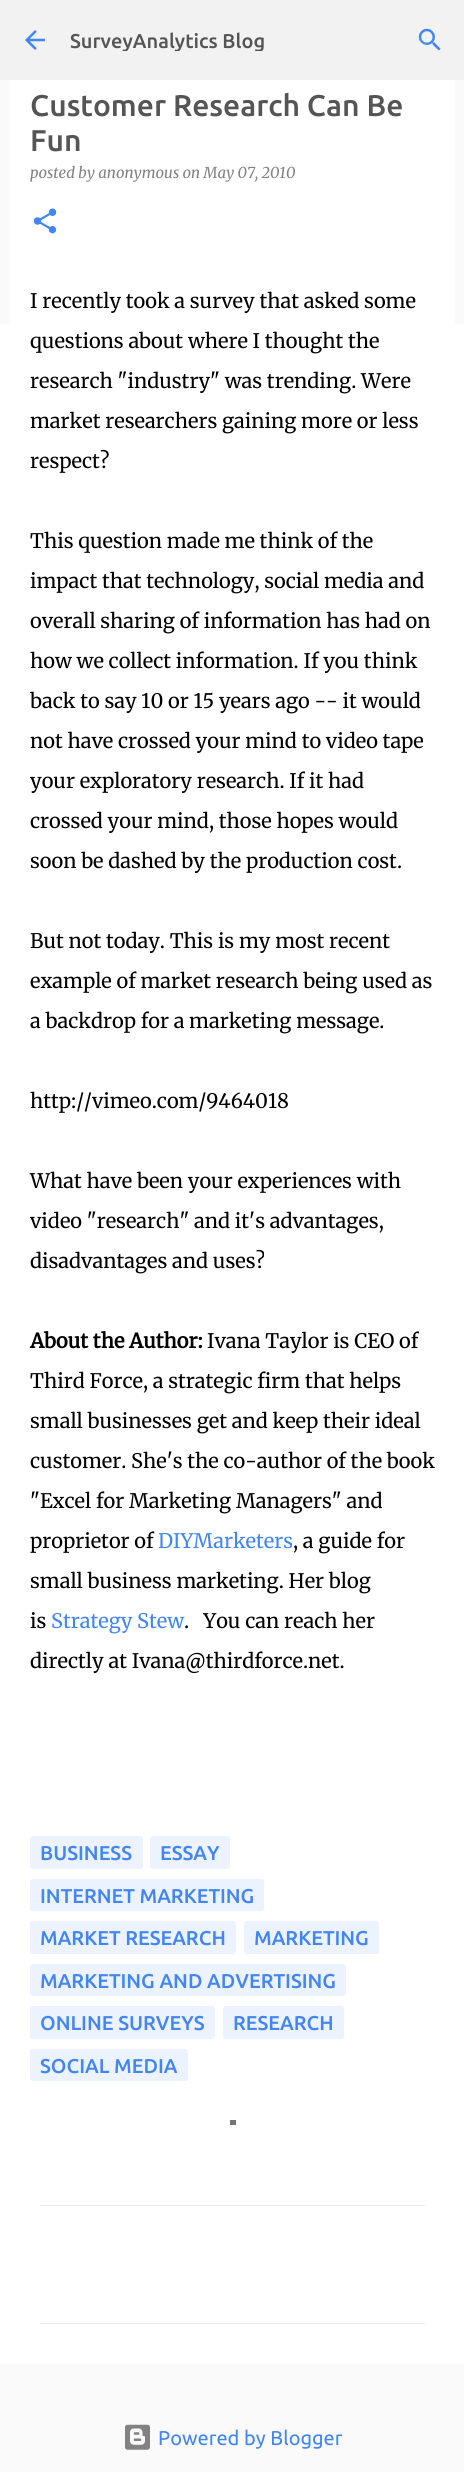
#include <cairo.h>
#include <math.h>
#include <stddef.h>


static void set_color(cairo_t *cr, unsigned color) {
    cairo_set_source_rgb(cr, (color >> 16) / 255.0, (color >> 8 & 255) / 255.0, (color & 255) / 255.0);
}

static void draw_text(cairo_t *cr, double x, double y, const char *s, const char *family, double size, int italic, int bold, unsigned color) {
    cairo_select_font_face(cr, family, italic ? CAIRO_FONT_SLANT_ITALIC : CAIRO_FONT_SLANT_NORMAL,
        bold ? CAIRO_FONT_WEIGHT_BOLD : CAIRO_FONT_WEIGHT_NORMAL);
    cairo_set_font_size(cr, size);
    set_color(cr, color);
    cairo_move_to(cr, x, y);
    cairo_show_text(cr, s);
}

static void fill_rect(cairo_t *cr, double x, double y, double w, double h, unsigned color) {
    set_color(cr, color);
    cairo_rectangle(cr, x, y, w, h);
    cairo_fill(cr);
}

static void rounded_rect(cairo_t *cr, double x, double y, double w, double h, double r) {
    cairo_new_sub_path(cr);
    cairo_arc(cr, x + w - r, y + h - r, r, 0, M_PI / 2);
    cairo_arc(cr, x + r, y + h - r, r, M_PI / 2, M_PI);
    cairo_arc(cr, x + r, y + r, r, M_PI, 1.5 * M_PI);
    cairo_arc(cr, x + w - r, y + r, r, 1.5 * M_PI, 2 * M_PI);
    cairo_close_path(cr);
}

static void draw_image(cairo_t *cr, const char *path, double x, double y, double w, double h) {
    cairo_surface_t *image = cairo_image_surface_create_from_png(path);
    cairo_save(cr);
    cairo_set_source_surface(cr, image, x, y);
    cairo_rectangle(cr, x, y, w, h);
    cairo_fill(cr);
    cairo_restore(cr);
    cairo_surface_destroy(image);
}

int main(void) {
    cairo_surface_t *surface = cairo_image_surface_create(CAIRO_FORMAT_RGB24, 464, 2472);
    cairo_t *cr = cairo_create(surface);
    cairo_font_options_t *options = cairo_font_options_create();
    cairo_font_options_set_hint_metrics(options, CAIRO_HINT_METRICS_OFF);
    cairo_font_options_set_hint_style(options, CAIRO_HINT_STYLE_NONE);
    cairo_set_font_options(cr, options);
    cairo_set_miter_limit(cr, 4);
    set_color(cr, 0xFAFAFA);
    cairo_paint(cr);
    fill_rect(cr, 0, 0, 464, 80, 0xF2F2F2);
    draw_image(cr, "assets/img1.png", 25, 30, 20, 20);
    cairo_save(cr);
    cairo_rectangle(cr, 70, 29, 325, 22);
    cairo_clip(cr);
    draw_text(cr, 70, 48, "SurveyAnalytics Blog", "Ubuntu Medium", 20, 0, 0, 0x555555);
    cairo_restore(cr);
    draw_image(cr, "assets/img2.png", 418, 28, 23, 23);
    fill_rect(cr, 0, 324, 464, 2040, 0xFFFFFF);
    fill_rect(cr, 10, 80, 445, 244, 0xFFFFFF);
    draw_text(cr, 30, 116, "Customer Research Can Be", "Ubuntu Medium", 30, 0, 0, 0x555555);
    draw_text(cr, 30, 151, "Fun", "Ubuntu Medium", 30, 0, 0, 0x555555);
    draw_text(cr, 30, 178, "posted by anonymous on May 07, 2010", "Merriweather", 15, 1, 0, 0x828282);
    draw_image(cr, "assets/img3.png", 33, 208, 24, 26);
    draw_text(cr, 30, 308, "I recently took a survey that asked some", "Merriweather Light", 20, 0, 0, 0x000000);
    draw_text(cr, 30, 348, "questions about where I thought the", "Merriweather Light", 20, 0, 0, 0x000000);
    draw_text(cr, 30, 388, "research \"industry\" was trending. Were", "Merriweather Light", 20, 0, 0, 0x000000);
    draw_text(cr, 30, 428, "market researchers gaining more or less", "Merriweather Light", 20, 0, 0, 0x000000);
    draw_text(cr, 30, 468, "respect?", "Merriweather Light", 20, 0, 0, 0x000000);
    draw_text(cr, 30, 548, "This question made me think of the", "Merriweather Light", 20, 0, 0, 0x000000);
    draw_text(cr, 30, 588, "impact that technology, social media and", "Merriweather Light", 20, 0, 0, 0x000000);
    draw_text(cr, 30, 628, "overall sharing of information has had on", "Merriweather Light", 20, 0, 0, 0x000000);
    draw_text(cr, 30, 668, "how we collect information. If you think", "Merriweather Light", 20, 0, 0, 0x000000);
    draw_text(cr, 30, 708, "back to say 10 or 15 years ago -- it would", "Merriweather Light", 20, 0, 0, 0x000000);
    draw_text(cr, 30, 748, "not have crossed your mind to video tape", "Merriweather Light", 20, 0, 0, 0x000000);
    draw_text(cr, 30, 788, "your exploratory research. If it had", "Merriweather Light", 20, 0, 0, 0x000000);
    draw_text(cr, 30, 828, "crossed your mind, those hopes would", "Merriweather Light", 20, 0, 0, 0x000000);
    draw_text(cr, 30, 868, "soon be dashed by the production cost.", "Merriweather Light", 20, 0, 0, 0x000000);
    draw_text(cr, 30, 948, "But not today. This is my most recent", "Merriweather Light", 20, 0, 0, 0x000000);
    draw_text(cr, 30, 988, "example of market research being used as", "Merriweather Light", 20, 0, 0, 0x000000);
    draw_text(cr, 30, 1028, "a backdrop for a marketing message.", "Merriweather Light", 20, 0, 0, 0x000000);
    draw_text(cr, 30, 1108, "http://vimeo.com/9464018", "Merriweather Light", 20, 0, 0, 0x000000);
    draw_text(cr, 30, 1188, "What have been your experiences with", "Merriweather Light", 20, 0, 0, 0x000000);
    draw_text(cr, 30, 1228, "video \"research\" and it's advantages,", "Merriweather Light", 20, 0, 0, 0x000000);
    draw_text(cr, 30, 1268, "disadvantages and uses?", "Merriweather Light", 20, 0, 0, 0x000000);
    draw_text(cr, 30, 1348, "About the Author:", "Merriweather", 20, 0, 1, 0x000000);
    draw_text(cr, 207, 1348, "Ivana Taylor is CEO of", "Merriweather Light", 20, 0, 0, 0x000000);
    draw_text(cr, 30, 1388, "Third Force, a strategic firm that helps", "Merriweather Light", 20, 0, 0, 0x000000);
    draw_text(cr, 30, 1428, "small businesses get and keep their ideal", "Merriweather Light", 20, 0, 0, 0x000000);
    draw_text(cr, 30, 1468, "customer. She's the co-author of the book", "Merriweather Light", 20, 0, 0, 0x000000);
    draw_text(cr, 30, 1508, "\"Excel for Marketing Managers\" and", "Merriweather Light", 20, 0, 0, 0x000000);
    draw_text(cr, 30, 1548, "proprietor of", "Merriweather Light", 20, 0, 0, 0x000000);
    draw_text(cr, 158, 1548, "DIYMarketers", "Merriweather Light", 20, 0, 0, 0x4285F4);
    draw_text(cr, 293, 1548, ", a guide for", "Merriweather Light", 20, 0, 0, 0x000000);
    draw_text(cr, 30, 1588, "small business marketing. Her blog", "Merriweather Light", 20, 0, 0, 0x000000);
    draw_text(cr, 30, 1628, "is", "Merriweather Light", 20, 0, 0, 0x000000);
    draw_text(cr, 51, 1628, "Strategy Stew", "Merriweather Light", 20, 0, 0, 0x4285F4);
    draw_text(cr, 184, 1628, ".   You can reach her", "Merriweather Light", 20, 0, 0, 0x000000);
    draw_text(cr, 30, 1668, "directly at Ivana@thirdforce.net.", "Merriweather Light", 20, 0, 0, 0x000000);
    set_color(cr, 0xECF3FE);
    rounded_rect(cr, 30, 1836, 113, 33, 2.5);
    cairo_fill(cr);
    draw_text(cr, 40, 1860, "BUSINESS", "Ubuntu Medium", 20, 0, 0, 0x4285F4);
    set_color(cr, 0xECF3FE);
    rounded_rect(cr, 150, 1836, 80, 33, 2.5);
    cairo_fill(cr);
    draw_text(cr, 160, 1860, "ESSAY", "Ubuntu Medium", 20, 0, 0, 0x4285F4);
    set_color(cr, 0xECF3FE);
    rounded_rect(cr, 30, 1879, 234, 32, 2.5);
    cairo_fill(cr);
    draw_text(cr, 40, 1903, "INTERNET MARKETING", "Ubuntu Medium", 20, 0, 0, 0x4285F4);
    set_color(cr, 0xECF3FE);
    rounded_rect(cr, 30, 1921, 206, 33, 2.5);
    cairo_fill(cr);
    draw_text(cr, 40, 1945, "MARKET RESEARCH", "Ubuntu Medium", 20, 0, 0, 0x4285F4);
    set_color(cr, 0xECF3FE);
    rounded_rect(cr, 244, 1921, 135, 33, 2.5);
    cairo_fill(cr);
    draw_text(cr, 254, 1945, "MARKETING", "Ubuntu Medium", 20, 0, 0, 0x4285F4);
    set_color(cr, 0xECF3FE);
    rounded_rect(cr, 30, 1964, 316, 32, 2.5);
    cairo_fill(cr);
    draw_text(cr, 40, 1988, "MARKETING AND ADVERTISING", "Ubuntu Medium", 20, 0, 0, 0x4285F4);
    set_color(cr, 0xECF3FE);
    rounded_rect(cr, 30, 2006, 185, 33, 2.5);
    cairo_fill(cr);
    draw_text(cr, 40, 2030, "ONLINE SURVEYS", "Ubuntu Medium", 20, 0, 0, 0x4285F4);
    set_color(cr, 0xECF3FE);
    rounded_rect(cr, 223, 2006, 121, 33, 2.5);
    cairo_fill(cr);
    draw_text(cr, 233, 2030, "RESEARCH", "Ubuntu Medium", 20, 0, 0, 0x4285F4);
    set_color(cr, 0xECF3FE);
    rounded_rect(cr, 30, 2049, 158, 32, 2.5);
    cairo_fill(cr);
    draw_text(cr, 40, 2073, "SOCIAL MEDIA", "Ubuntu Medium", 20, 0, 0, 0x4285F4);
    fill_rect(cr, 40, 2205, 385, 1, 0xEBEBEB);
    fill_rect(cr, 40, 2323, 385, 1, 0xEBEBEB);
    draw_image(cr, "assets/img4.png", 125, 2424, 25, 26);
    draw_text(cr, 158, 2445, "Powered by Blogger", "Ubuntu", 20, 0, 0, 0x4285F4);
    fill_rect(cr, 230, 2120, 6, 5, 0x757575);
    cairo_surface_write_to_png(surface, "output.png");
    cairo_font_options_destroy(options);
    cairo_destroy(cr);
    cairo_surface_destroy(surface);
    return 0;
}
